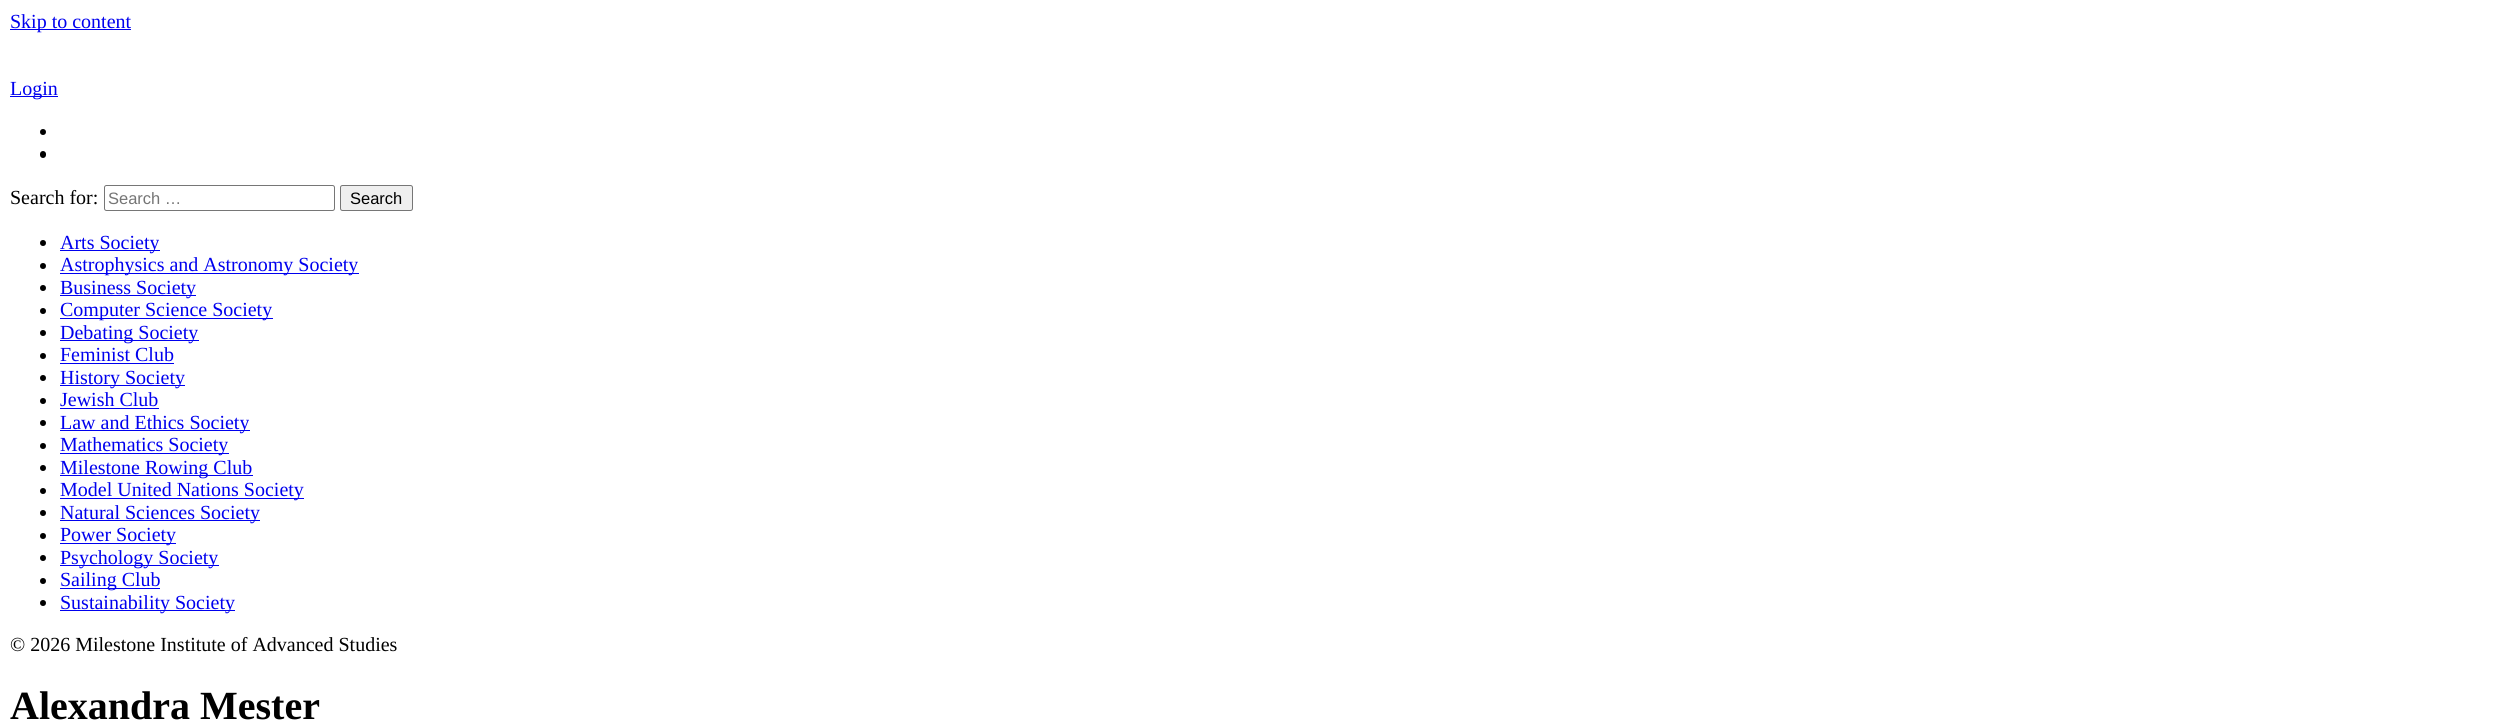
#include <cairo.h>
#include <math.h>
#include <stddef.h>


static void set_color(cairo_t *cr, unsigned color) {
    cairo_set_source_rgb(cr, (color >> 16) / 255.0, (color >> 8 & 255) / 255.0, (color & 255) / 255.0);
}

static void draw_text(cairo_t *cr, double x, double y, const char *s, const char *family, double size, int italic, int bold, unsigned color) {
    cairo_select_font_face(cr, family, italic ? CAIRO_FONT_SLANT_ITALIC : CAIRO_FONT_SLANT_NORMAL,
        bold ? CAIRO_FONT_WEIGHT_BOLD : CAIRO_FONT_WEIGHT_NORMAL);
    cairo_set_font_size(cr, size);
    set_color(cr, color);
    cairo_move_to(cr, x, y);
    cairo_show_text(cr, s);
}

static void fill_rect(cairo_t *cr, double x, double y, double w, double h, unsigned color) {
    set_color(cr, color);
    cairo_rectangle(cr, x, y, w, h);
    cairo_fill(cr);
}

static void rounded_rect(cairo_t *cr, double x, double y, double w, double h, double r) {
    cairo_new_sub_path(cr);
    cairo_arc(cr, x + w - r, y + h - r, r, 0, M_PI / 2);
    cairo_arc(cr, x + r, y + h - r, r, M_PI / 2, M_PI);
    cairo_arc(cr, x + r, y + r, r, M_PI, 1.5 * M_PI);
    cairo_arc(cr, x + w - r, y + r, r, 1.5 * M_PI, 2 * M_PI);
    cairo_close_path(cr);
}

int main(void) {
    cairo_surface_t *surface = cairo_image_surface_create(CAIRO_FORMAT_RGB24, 2494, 728);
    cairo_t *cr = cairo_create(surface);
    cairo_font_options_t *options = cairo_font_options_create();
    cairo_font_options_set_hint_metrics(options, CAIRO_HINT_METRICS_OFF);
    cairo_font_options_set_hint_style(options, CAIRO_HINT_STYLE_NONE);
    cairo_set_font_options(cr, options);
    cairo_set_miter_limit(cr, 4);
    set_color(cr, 0xFFFFFF);
    cairo_paint(cr);
    fill_rect(cr, 10, 29, 121, 1, 0x0000EE);
    draw_text(cr, 10, 28, "Skip to content", "Liberation Serif", 20, 0, 0, 0x0000EE);
    fill_rect(cr, 10, 96, 48, 1, 0x0000EE);
    draw_text(cr, 10, 95, "Login", "Liberation Serif", 20, 0, 0, 0x0000EE);
    set_color(cr, 0x000000);
    cairo_new_path(cr);
    cairo_arc(cr, 43, 132, 3, 0, 2 * M_PI);
    cairo_fill(cr);
    rounded_rect(cr, 40, 151, 6, 7, 3);
    cairo_fill(cr);
    draw_text(cr, 10, 204, "Search for:", "Liberation Serif", 20, 0, 0, 0x000000);
    rounded_rect(cr, 104.5, 185.5, 230, 25, 2);
    set_color(cr, 0x767676);
    cairo_set_line_width(cr, 1);
    cairo_stroke(cr);
    draw_text(cr, 108, 204, "Search …", "Liberation Sans", 16.5, 0, 0, 0x757575);
    set_color(cr, 0xEFEFEF);
    rounded_rect(cr, 340.5, 185.5, 72, 25, 2);
    cairo_fill_preserve(cr);
    set_color(cr, 0x767676);
    cairo_stroke(cr);
    draw_text(cr, 350, 204, "Search", "Liberation Sans", 16.5, 0, 0, 0x000000);
    cairo_new_path(cr);
    cairo_arc(cr, 43, 243, 3, 0, 2 * M_PI);
    cairo_fill(cr);
    fill_rect(cr, 60, 250, 100, 1, 0x0000EE);
    draw_text(cr, 60, 249, "Arts Society", "Liberation Serif", 20, 0, 0, 0x0000EE);
    set_color(cr, 0x000000);
    cairo_new_path(cr);
    cairo_arc(cr, 43, 266, 3, 0, 2 * M_PI);
    cairo_fill(cr);
    fill_rect(cr, 60, 273, 299, 1, 0x0000EE);
    draw_text(cr, 60, 271, "Astrophysics and Astronomy Society", "Liberation Serif", 20, 0, 0, 0x0000EE);
    set_color(cr, 0x000000);
    cairo_new_path(cr);
    cairo_arc(cr, 43, 288, 3, 0, 2 * M_PI);
    cairo_fill(cr);
    fill_rect(cr, 60, 295, 136, 1, 0x0000EE);
    draw_text(cr, 60, 294, "Business Society", "Liberation Serif", 20, 0, 0, 0x0000EE);
    set_color(cr, 0x000000);
    cairo_new_path(cr);
    cairo_arc(cr, 43, 311, 3, 0, 2 * M_PI);
    cairo_fill(cr);
    fill_rect(cr, 60, 318, 213, 1, 0x0000EE);
    draw_text(cr, 60, 316, "Computer Science Society", "Liberation Serif", 20, 0, 0, 0x0000EE);
    set_color(cr, 0x000000);
    cairo_new_path(cr);
    cairo_arc(cr, 43, 333, 3, 0, 2 * M_PI);
    cairo_fill(cr);
    fill_rect(cr, 60, 340, 139, 1, 0x0000EE);
    draw_text(cr, 60, 339, "Debating Society", "Liberation Serif", 20, 0, 0, 0x0000EE);
    set_color(cr, 0x000000);
    cairo_new_path(cr);
    cairo_arc(cr, 43, 356, 3, 0, 2 * M_PI);
    cairo_fill(cr);
    draw_text(cr, 60, 361, "Feminist Club", "Liberation Serif", 20, 0, 0, 0x0000EE);
    fill_rect(cr, 60, 363, 114, 1, 0x0000EE);
    set_color(cr, 0x000000);
    cairo_new_path(cr);
    cairo_arc(cr, 43, 378, 3, 0, 2 * M_PI);
    cairo_fill(cr);
    fill_rect(cr, 60, 385, 125, 1, 0x0000EE);
    draw_text(cr, 60, 384, "History Society", "Liberation Serif", 20, 0, 0, 0x0000EE);
    set_color(cr, 0x000000);
    cairo_new_path(cr);
    cairo_arc(cr, 43, 401, 3, 0, 2 * M_PI);
    cairo_fill(cr);
    draw_text(cr, 60, 406, "Jewish Club", "Liberation Serif", 20, 0, 0, 0x0000EE);
    fill_rect(cr, 60, 408, 99, 1, 0x0000EE);
    set_color(cr, 0x000000);
    cairo_new_path(cr);
    cairo_arc(cr, 43, 423, 3, 0, 2 * M_PI);
    cairo_fill(cr);
    fill_rect(cr, 60, 430, 190, 1, 0x0000EE);
    draw_text(cr, 60, 429, "Law and Ethics Society", "Liberation Serif", 20, 0, 0, 0x0000EE);
    set_color(cr, 0x000000);
    cairo_new_path(cr);
    cairo_arc(cr, 43, 446, 3, 0, 2 * M_PI);
    cairo_fill(cr);
    fill_rect(cr, 60, 453, 169, 1, 0x0000EE);
    draw_text(cr, 60, 451, "Mathematics Society", "Liberation Serif", 20, 0, 0, 0x0000EE);
    set_color(cr, 0x000000);
    cairo_new_path(cr);
    cairo_arc(cr, 43, 468, 3, 0, 2 * M_PI);
    cairo_fill(cr);
    fill_rect(cr, 60, 475, 193, 1, 0x0000EE);
    draw_text(cr, 60, 474, "Milestone Rowing Club", "Liberation Serif", 20, 0, 0, 0x0000EE);
    set_color(cr, 0x000000);
    cairo_new_path(cr);
    cairo_arc(cr, 43, 491, 3, 0, 2 * M_PI);
    cairo_fill(cr);
    fill_rect(cr, 60, 498, 244, 1, 0x0000EE);
    draw_text(cr, 60, 496, "Model United Nations Society", "Liberation Serif", 20, 0, 0, 0x0000EE);
    set_color(cr, 0x000000);
    cairo_new_path(cr);
    cairo_arc(cr, 43, 513, 3, 0, 2 * M_PI);
    cairo_fill(cr);
    fill_rect(cr, 60, 520, 200, 1, 0x0000EE);
    draw_text(cr, 60, 519, "Natural Sciences Society", "Liberation Serif", 20, 0, 0, 0x0000EE);
    set_color(cr, 0x000000);
    cairo_new_path(cr);
    cairo_arc(cr, 43, 536, 3, 0, 2 * M_PI);
    cairo_fill(cr);
    fill_rect(cr, 60, 543, 116, 1, 0x0000EE);
    draw_text(cr, 60, 541, "Power Society", "Liberation Serif", 20, 0, 0, 0x0000EE);
    set_color(cr, 0x000000);
    cairo_new_path(cr);
    cairo_arc(cr, 43, 558, 3, 0, 2 * M_PI);
    cairo_fill(cr);
    fill_rect(cr, 60, 565, 159, 1, 0x0000EE);
    draw_text(cr, 60, 564, "Psychology Society", "Liberation Serif", 20, 0, 0, 0x0000EE);
    set_color(cr, 0x000000);
    cairo_new_path(cr);
    cairo_arc(cr, 43, 581, 3, 0, 2 * M_PI);
    cairo_fill(cr);
    fill_rect(cr, 60, 588, 100, 1, 0x0000EE);
    draw_text(cr, 60, 586, "Sailing Club", "Liberation Serif", 20, 0, 0, 0x0000EE);
    set_color(cr, 0x000000);
    cairo_new_path(cr);
    cairo_arc(cr, 43, 603, 3, 0, 2 * M_PI);
    cairo_fill(cr);
    fill_rect(cr, 60, 610, 175, 1, 0x0000EE);
    draw_text(cr, 60, 609, "Sustainability Society", "Liberation Serif", 20, 0, 0, 0x0000EE);
    draw_text(cr, 10, 651, "© 2026 Milestone Institute of Advanced Studies", "Liberation Serif", 20, 0, 0, 0x000000);
    draw_text(cr, 10, 719, "Alexandra Mester", "Liberation Serif", 40, 0, 1, 0x000000);
    cairo_surface_write_to_png(surface, "output.png");
    cairo_font_options_destroy(options);
    cairo_destroy(cr);
    cairo_surface_destroy(surface);
    return 0;
}
